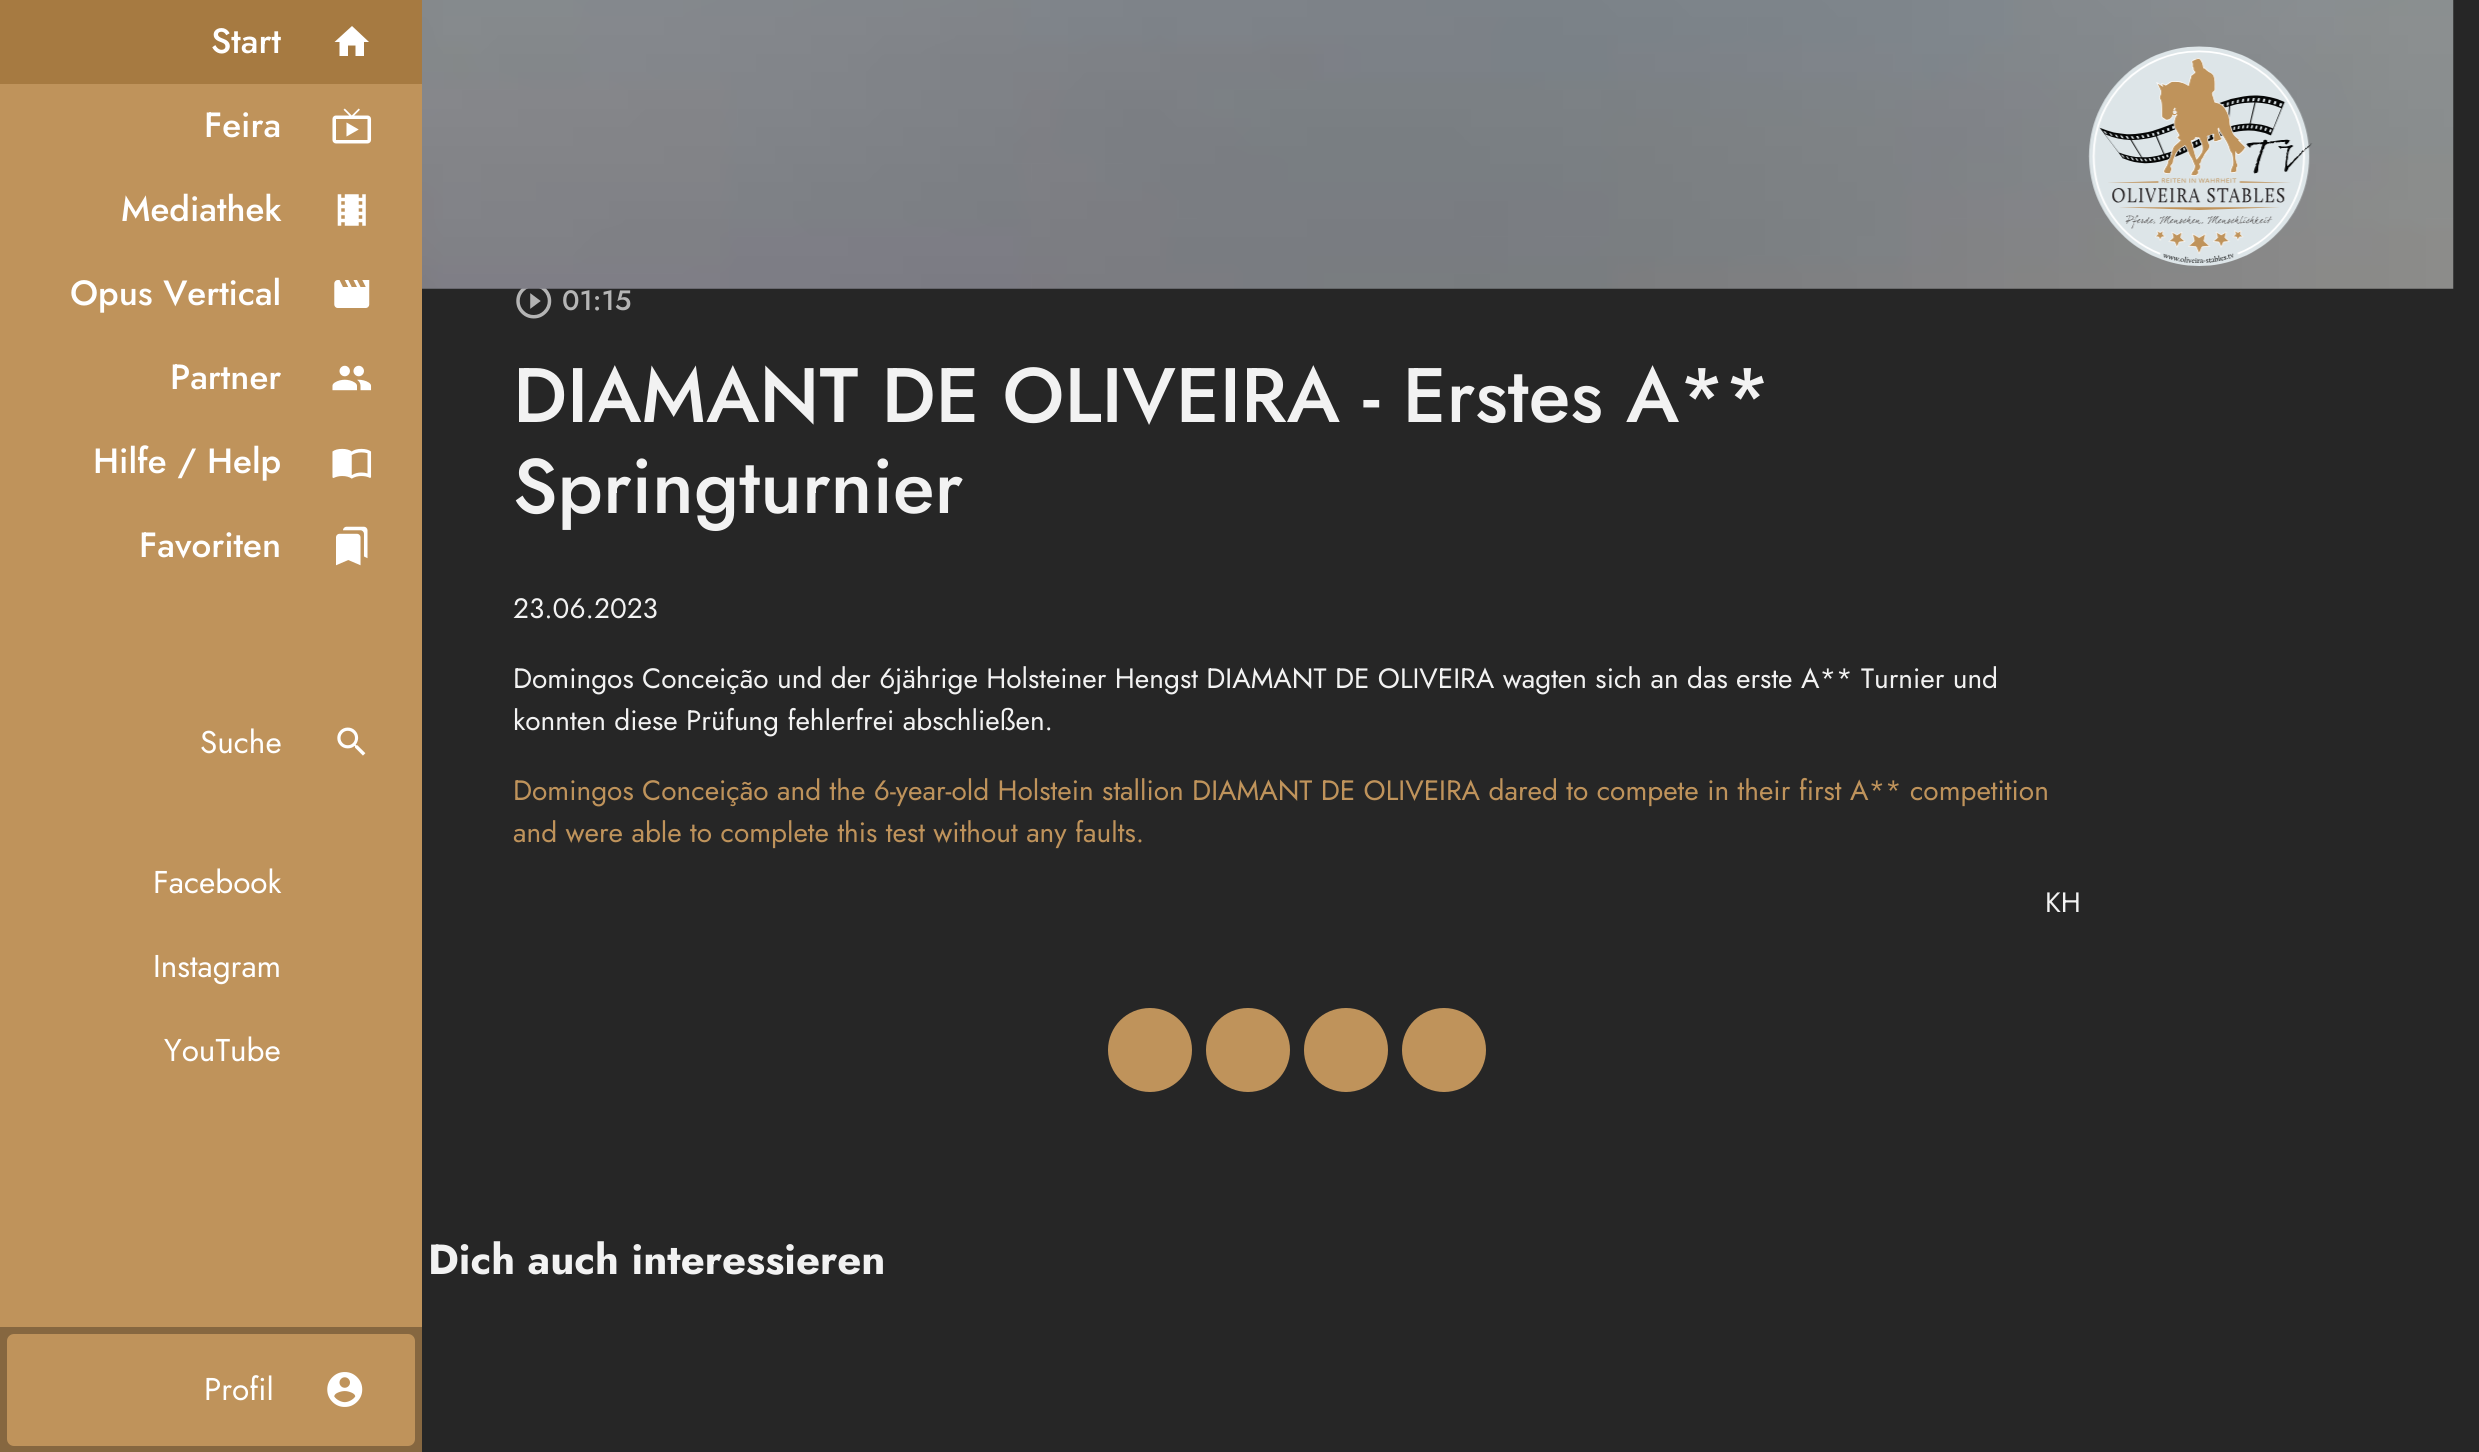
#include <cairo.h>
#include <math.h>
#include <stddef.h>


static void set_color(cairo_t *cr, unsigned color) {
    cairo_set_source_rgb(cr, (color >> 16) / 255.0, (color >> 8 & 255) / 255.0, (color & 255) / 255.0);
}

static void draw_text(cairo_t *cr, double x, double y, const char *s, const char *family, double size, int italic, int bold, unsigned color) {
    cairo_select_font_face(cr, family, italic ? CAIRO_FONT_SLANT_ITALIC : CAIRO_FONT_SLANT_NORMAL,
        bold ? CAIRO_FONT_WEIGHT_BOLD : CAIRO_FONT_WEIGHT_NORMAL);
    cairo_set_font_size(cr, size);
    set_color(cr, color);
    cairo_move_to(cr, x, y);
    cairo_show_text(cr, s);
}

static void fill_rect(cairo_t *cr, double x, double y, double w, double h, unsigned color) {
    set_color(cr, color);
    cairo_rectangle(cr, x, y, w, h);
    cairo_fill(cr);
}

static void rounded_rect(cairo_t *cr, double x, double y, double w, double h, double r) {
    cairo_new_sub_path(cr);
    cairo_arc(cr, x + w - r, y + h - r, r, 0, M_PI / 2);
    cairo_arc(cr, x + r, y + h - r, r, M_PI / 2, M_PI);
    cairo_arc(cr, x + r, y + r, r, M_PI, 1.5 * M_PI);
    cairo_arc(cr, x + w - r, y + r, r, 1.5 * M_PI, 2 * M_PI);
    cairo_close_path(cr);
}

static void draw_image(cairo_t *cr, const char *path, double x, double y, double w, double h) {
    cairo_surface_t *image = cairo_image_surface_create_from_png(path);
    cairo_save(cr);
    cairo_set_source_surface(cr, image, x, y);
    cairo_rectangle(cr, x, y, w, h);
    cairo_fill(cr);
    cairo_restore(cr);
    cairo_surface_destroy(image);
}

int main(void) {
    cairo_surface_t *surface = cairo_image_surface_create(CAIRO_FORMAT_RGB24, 2479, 1452);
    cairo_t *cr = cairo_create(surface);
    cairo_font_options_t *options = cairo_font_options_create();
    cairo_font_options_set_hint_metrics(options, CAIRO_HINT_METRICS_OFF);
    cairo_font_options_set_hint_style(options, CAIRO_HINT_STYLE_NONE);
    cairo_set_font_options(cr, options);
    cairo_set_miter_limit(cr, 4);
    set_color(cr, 0x262626);
    cairo_paint(cr);
    fill_rect(cr, 0, 84, 422, 1243, 0xBF935B);
    draw_image(cr, "assets/img11.png", 516, 288, 36, 31);
    draw_image(cr, "assets/img10.png", 422, 0, 2032, 289);
    draw_text(cr, 562, 310, "01:15", "Jost Medium", 28, 0, 0, 0xB5B5B5);
    draw_text(cr, 513, 422, "DIAMANT DE OLIVEIRA - Erstes A**", "Jost Medium", 77, 0, 0, 0xF2F2F2);
    draw_text(cr, 513, 513, "Springturnier", "Jost Medium", 77, 0, 0, 0xF2F2F2);
    draw_text(cr, 513, 618, "23.06.2023", "Jost", 28, 0, 0, 0xF2F2F2);
    cairo_save(cr);
    cairo_rectangle(cr, 0, 0, 422, 84);
    cairo_clip(cr);
    set_color(cr, 0xA67A41);
    cairo_arc(cr, 352, 42, 588, 0, 2 * M_PI);
    cairo_fill(cr);
    cairo_restore(cr);
    draw_text(cr, 211, 53, "Start", "Jost Medium", 35, 0, 0, 0xFFFFFF);
    cairo_new_path(cr);
    cairo_move_to(cr, 348, 56);
    cairo_line_to(cr, 339.5, 56);
    cairo_line_to(cr, 339.5, 42);
    cairo_line_to(cr, 334.5, 42);
    cairo_line_to(cr, 352, 26);
    cairo_line_to(cr, 369, 42);
    cairo_line_to(cr, 364, 42);
    cairo_line_to(cr, 364, 56);
    cairo_line_to(cr, 355.5, 56);
    cairo_line_to(cr, 355.5, 45.5);
    cairo_line_to(cr, 348, 45.5);
    cairo_close_path(cr);
    cairo_fill(cr);
    draw_text(cr, 204, 137, "Feira", "Jost Medium", 35, 0, 0, 0xFFFFFF);
    draw_image(cr, "assets/img1.png", 332, 108, 40, 36);
    draw_text(cr, 121, 221, "Mediathek", "Jost Medium", 35, 0, 0, 0xFFFFFF);
    draw_image(cr, "assets/img2.png", 337, 194, 29, 32);
    draw_text(cr, 70, 305, "Opus Vertical", "Jost Medium", 35, 0, 0, 0xFFFFFF);
    draw_image(cr, "assets/img3.png", 334, 280, 36, 28);
    draw_text(cr, 170, 389, "Partner", "Jost Medium", 35, 0, 0, 0xFFFFFF);
    draw_image(cr, "assets/img4.png", 332, 365, 40, 26);
    draw_text(cr, 93, 473, "Hilfe / Help", "Jost Medium", 35, 0, 0, 0xFFFFFF);
    draw_image(cr, "assets/img5.png", 332, 448, 40, 31);
    draw_text(cr, 139, 557, "Favoriten", "Jost Medium", 35, 0, 0, 0xFFFFFF);
    draw_image(cr, "assets/img6.png", 336, 526, 32, 40);
    draw_text(cr, 200, 753, "Suche", "Jost", 31.5, 0, 0, 0xFFFFFF);
    draw_image(cr, "assets/img7.png", 337, 727, 29, 29);
    draw_text(cr, 153, 893, "Facebook", "Jost", 31.5, 0, 0, 0xFFFFFF);
    draw_text(cr, 153, 977, "Instagram", "Jost", 31.5, 0, 0, 0xFFFFFF);
    draw_text(cr, 164, 1061, "YouTube", "Jost", 31.5, 0, 0, 0xFFFFFF);
    fill_rect(cr, 0, 1327, 422, 125, 0x866740);
    set_color(cr, 0xBF935B);
    rounded_rect(cr, 7, 1334, 408, 112, 7);
    cairo_fill(cr);
    draw_text(cr, 204, 1400, "Profil", "Jost", 31.5, 0, 0, 0xFFFFFF);
    draw_image(cr, "assets/img8.png", 327, 1372, 36, 35);
    draw_image(cr, "assets/img9.png", 2088, 46, 225, 220);
    draw_text(cr, 513, 688, "Domingos Conceição und der 6jährige Holsteiner Hengst DIAMANT DE OLIVEIRA wagten sich an das erste A** Turnier und", "Jost", 28, 0, 0, 0xF2F2F2);
    draw_text(cr, 513, 730, "konnten diese Prüfung fehlerfrei abschließen.", "Jost", 28, 0, 0, 0xF2F2F2);
    draw_text(cr, 513, 800, "Domingos Conceição and the 6-year-old Holstein stallion DIAMANT DE OLIVEIRA dared to compete in their first A** competition", "Jost", 28, 0, 0, 0xBF935B);
    draw_text(cr, 513, 842, "and were able to complete this test without any faults.", "Jost", 28, 0, 0, 0xBF935B);
    draw_text(cr, 2045, 912, "KH", "Jost", 28, 0, 0, 0xF2F2F2);
    set_color(cr, 0xBF935B);
    cairo_new_path(cr);
    cairo_arc(cr, 1150, 1050, 42, 0, 2 * M_PI);
    cairo_fill(cr);
    cairo_arc(cr, 1248, 1050, 42, 0, 2 * M_PI);
    cairo_fill(cr);
    cairo_arc(cr, 1346, 1050, 42, 0, 2 * M_PI);
    cairo_fill(cr);
    cairo_arc(cr, 1444, 1050, 42, 0, 2 * M_PI);
    cairo_fill(cr);
    draw_text(cr, 428, 1274, "Dich auch interessieren", "Jost", 42, 0, 1, 0xF2F2F2);
    cairo_surface_write_to_png(surface, "output.png");
    cairo_font_options_destroy(options);
    cairo_destroy(cr);
    cairo_surface_destroy(surface);
    return 0;
}
